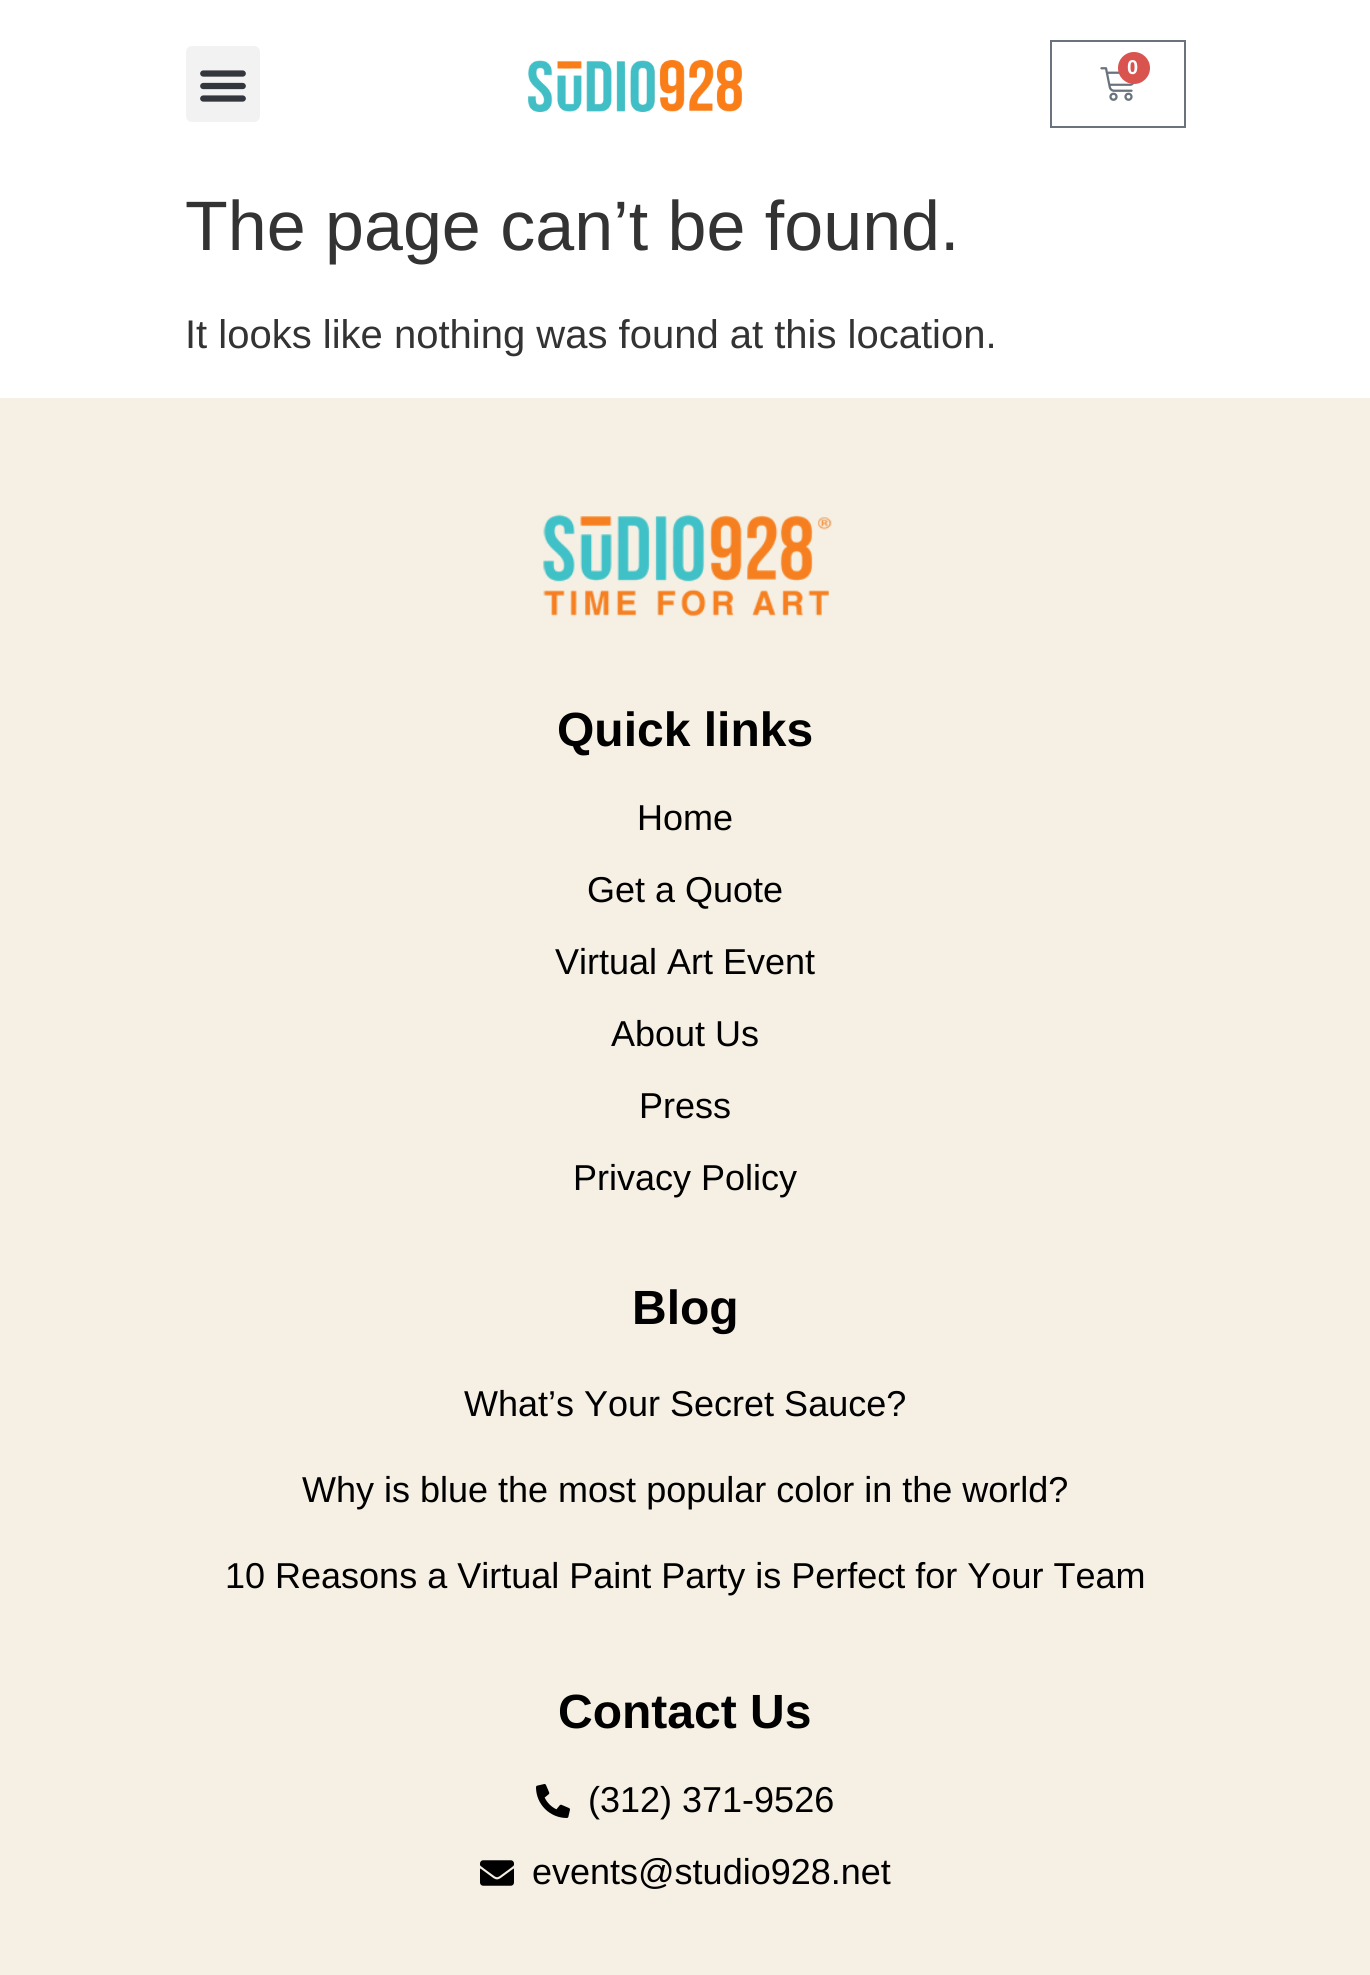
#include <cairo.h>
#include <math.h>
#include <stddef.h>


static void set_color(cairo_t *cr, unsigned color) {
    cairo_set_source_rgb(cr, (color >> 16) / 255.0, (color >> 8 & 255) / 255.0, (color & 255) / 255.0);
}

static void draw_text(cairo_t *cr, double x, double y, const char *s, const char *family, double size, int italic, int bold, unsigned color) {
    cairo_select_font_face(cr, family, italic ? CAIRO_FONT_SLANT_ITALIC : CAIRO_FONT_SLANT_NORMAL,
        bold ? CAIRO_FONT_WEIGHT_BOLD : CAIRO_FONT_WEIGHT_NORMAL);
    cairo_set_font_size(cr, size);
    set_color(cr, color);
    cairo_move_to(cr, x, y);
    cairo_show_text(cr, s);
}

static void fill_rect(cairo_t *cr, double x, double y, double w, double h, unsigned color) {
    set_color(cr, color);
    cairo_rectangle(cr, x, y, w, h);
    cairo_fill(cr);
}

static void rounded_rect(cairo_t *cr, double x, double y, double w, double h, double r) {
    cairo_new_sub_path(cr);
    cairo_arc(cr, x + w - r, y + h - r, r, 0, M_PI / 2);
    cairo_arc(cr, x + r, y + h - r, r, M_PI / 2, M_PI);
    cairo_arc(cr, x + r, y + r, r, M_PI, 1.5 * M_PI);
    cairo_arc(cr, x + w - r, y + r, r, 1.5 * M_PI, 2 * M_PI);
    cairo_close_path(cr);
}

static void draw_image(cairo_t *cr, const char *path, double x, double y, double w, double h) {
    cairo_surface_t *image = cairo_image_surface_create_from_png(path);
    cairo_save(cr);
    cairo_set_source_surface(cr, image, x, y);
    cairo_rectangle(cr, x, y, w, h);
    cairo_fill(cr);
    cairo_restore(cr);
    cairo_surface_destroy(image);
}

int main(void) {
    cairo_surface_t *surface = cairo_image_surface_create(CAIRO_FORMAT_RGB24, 1370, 1975);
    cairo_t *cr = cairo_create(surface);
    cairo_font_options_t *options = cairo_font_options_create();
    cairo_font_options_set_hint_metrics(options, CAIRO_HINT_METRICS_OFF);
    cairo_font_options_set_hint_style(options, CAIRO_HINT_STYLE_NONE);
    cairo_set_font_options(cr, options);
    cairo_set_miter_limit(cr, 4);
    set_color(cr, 0xFFFFFF);
    cairo_paint(cr);
    set_color(cr, 0xF2F2F2);
    rounded_rect(cr, 186, 46, 74, 76, 6);
    cairo_fill(cr);
    draw_image(cr, "assets/img1.png", 200, 70, 46, 32);
    draw_image(cr, "assets/img2.png", 528, 60, 214, 52);
    cairo_rectangle(cr, 1051, 41, 134, 86);
    set_color(cr, 0x69727D);
    cairo_stroke(cr);
    draw_image(cr, "assets/img3.png", 1100, 67, 35, 34);
    set_color(cr, 0xD9534F);
    cairo_arc(cr, 1134, 68, 16, 0, 2 * M_PI);
    cairo_fill(cr);
    draw_text(cr, 1127, 74, "0", "Liberation Sans", 20, 0, 1, 0xFFFFFF);
    draw_text(cr, 185, 250, "The page can’t be found.", "Liberation Sans", 70, 0, 0, 0x333333);
    draw_text(cr, 185, 348, "It looks like nothing was found at this location.", "Liberation Sans", 40, 0, 0, 0x333333);
    fill_rect(cr, 0, 398, 1370, 1577, 0xF5F0E3);
    draw_image(cr, "assets/img4.png", 543, 514, 289, 103);
    draw_text(cr, 557, 746, "Quick links", "Liberation Sans", 48, 0, 1, 0x000000);
    draw_text(cr, 637, 830, "Home", "Liberation Sans", 36, 0, 0, 0x000000);
    draw_text(cr, 587, 902, "Get a Quote", "Liberation Sans", 36, 0, 0, 0x000000);
    draw_text(cr, 555, 974, "Virtual Art Event", "Liberation Sans", 36, 0, 0, 0x000000);
    draw_text(cr, 611, 1046, "About Us", "Liberation Sans", 36, 0, 0, 0x000000);
    draw_text(cr, 639, 1118, "Press", "Liberation Sans", 36, 0, 0, 0x000000);
    draw_text(cr, 573, 1190, "Privacy Policy", "Liberation Sans", 36, 0, 0, 0x000000);
    draw_text(cr, 632, 1324, "Blog", "Liberation Sans", 48, 0, 1, 0x000000);
    draw_text(cr, 464, 1416, "What’s Your Secret Sauce?", "Liberation Sans", 36, 0, 0, 0x000000);
    draw_text(cr, 302, 1502, "Why is blue the most popular color in the world?", "Liberation Sans", 36, 0, 0, 0x000000);
    draw_text(cr, 225, 1588, "10 Reasons a Virtual Paint Party is Perfect for Your Team", "Liberation Sans", 36, 0, 0, 0x000000);
    draw_text(cr, 558, 1728, "Contact Us", "Liberation Sans", 48, 0, 1, 0x000000);
    draw_image(cr, "assets/img5.png", 536, 1784, 34, 34);
    draw_text(cr, 588, 1812, "(312) 371-9526", "Liberation Sans", 36, 0, 0, 0x000000);
    draw_image(cr, "assets/img6.png", 480, 1860, 34, 26);
    draw_text(cr, 532, 1884, "events@studio928.net", "Liberation Sans", 36, 0, 0, 0x000000);
    cairo_surface_write_to_png(surface, "output.png");
    cairo_font_options_destroy(options);
    cairo_destroy(cr);
    cairo_surface_destroy(surface);
    return 0;
}
